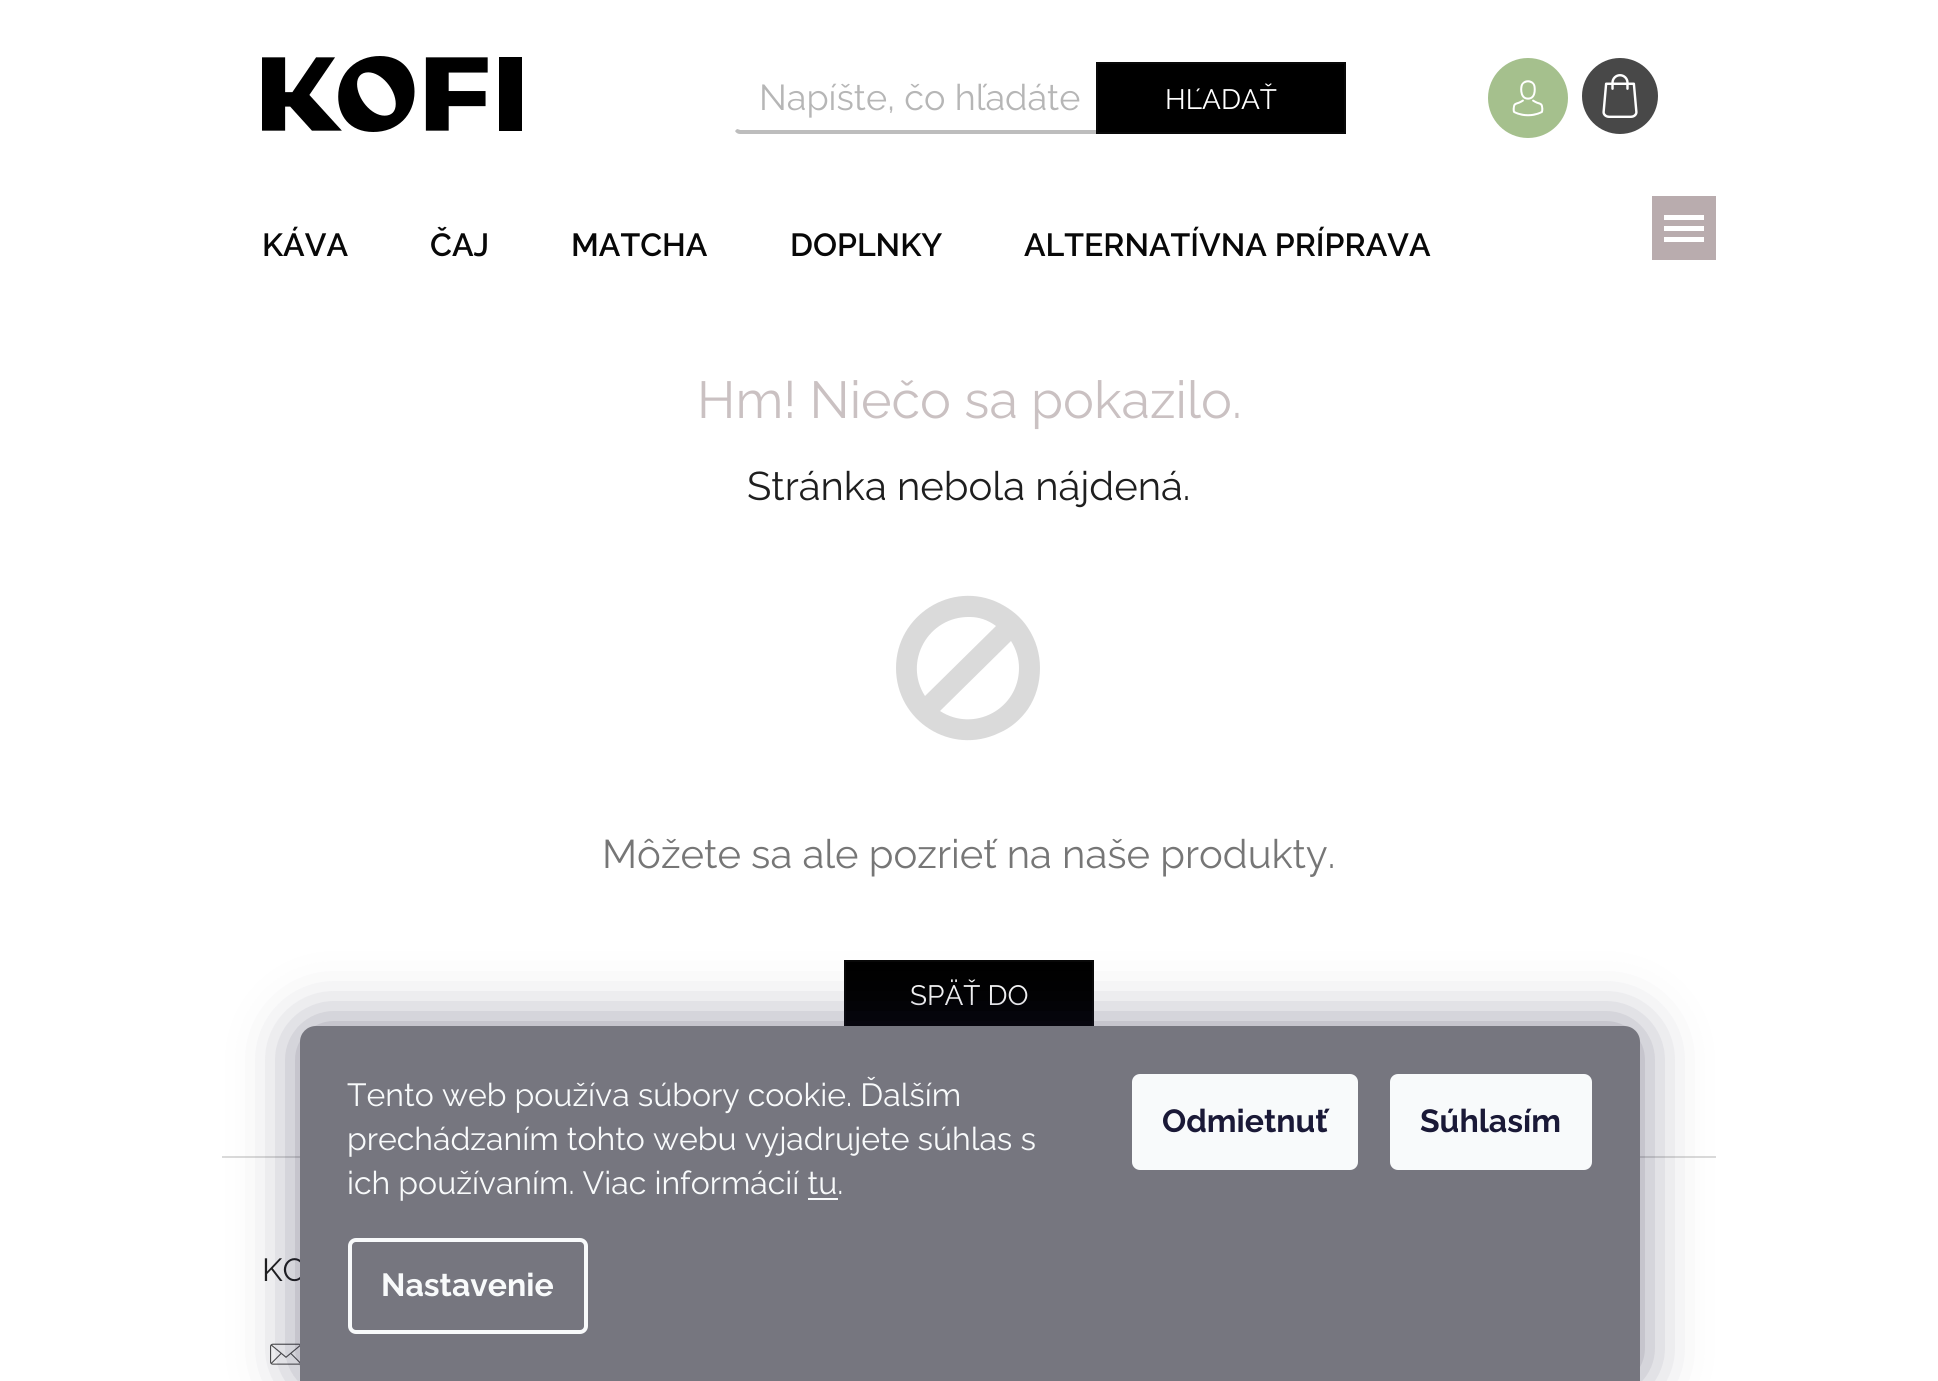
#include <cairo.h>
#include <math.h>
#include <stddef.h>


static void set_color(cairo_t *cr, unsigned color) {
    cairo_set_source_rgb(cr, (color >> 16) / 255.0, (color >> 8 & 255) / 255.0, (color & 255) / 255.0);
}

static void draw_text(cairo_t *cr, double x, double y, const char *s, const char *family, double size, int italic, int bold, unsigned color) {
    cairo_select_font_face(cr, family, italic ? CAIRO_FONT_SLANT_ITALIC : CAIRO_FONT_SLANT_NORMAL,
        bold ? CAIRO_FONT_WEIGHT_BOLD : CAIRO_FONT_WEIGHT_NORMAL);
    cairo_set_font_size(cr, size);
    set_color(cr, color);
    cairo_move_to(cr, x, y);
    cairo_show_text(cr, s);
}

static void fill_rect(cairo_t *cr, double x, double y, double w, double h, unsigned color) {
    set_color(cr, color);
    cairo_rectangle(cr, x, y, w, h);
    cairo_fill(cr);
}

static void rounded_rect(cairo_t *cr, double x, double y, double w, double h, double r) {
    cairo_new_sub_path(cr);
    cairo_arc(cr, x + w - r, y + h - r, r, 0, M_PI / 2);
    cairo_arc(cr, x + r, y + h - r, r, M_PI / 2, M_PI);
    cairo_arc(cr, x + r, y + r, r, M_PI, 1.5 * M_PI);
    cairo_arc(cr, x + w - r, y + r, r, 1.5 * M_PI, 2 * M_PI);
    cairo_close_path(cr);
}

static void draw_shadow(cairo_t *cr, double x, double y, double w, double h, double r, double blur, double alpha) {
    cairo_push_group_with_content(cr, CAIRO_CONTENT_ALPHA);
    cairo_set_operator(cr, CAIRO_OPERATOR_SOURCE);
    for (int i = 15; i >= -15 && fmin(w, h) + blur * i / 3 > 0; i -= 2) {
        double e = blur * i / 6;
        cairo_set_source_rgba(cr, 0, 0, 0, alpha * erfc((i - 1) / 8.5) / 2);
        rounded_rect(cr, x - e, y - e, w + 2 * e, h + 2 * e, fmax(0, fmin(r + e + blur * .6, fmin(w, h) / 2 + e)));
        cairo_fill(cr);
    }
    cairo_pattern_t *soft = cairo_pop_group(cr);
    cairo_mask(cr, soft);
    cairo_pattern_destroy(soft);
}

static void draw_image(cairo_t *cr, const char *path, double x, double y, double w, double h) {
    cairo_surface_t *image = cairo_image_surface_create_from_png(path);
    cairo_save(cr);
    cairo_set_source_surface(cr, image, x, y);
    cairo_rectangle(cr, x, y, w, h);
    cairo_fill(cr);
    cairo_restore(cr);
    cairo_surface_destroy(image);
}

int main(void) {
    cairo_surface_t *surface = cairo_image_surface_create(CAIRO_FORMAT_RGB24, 1938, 1381);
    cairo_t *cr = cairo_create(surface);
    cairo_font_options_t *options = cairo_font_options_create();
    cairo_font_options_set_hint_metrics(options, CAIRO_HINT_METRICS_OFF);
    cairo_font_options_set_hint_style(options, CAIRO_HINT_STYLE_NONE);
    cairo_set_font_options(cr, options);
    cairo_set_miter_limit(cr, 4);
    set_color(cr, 0xFFFFFF);
    cairo_paint(cr);
    draw_image(cr, "assets/img1.png", 262, 56, 260, 76);
    set_color(cr, 0xBDBDBD);
    cairo_new_path(cr);
    cairo_move_to(cr, 740, 134);
    cairo_line_to(cr, 1340, 134);
    cairo_curve_to(cr, 1342, 134, 1344, 133, 1345, 131);
    cairo_line_to(cr, 1343, 129);
    cairo_line_to(cr, 1340, 130);
    cairo_line_to(cr, 740, 130);
    cairo_line_to(cr, 737, 129);
    cairo_line_to(cr, 735, 131);
    cairo_curve_to(cr, 736, 133, 738, 134, 740, 134);
    cairo_close_path(cr);
    cairo_fill(cr);
    draw_text(cr, 759, 110, "Napíšte, čo hľadáte", "Raleway", 36, 0, 0, 0xB6B6B6);
    set_color(cr, 0x000000);
    cairo_rectangle(cr, 1097, 63, 248, 70);
    cairo_fill_preserve(cr);
    set_color(cr, 0x080808);
    cairo_stroke(cr);
    draw_text(cr, 1165, 109, "HĽADAŤ", "Raleway", 28, 0, 0, 0xFFFFFF);
    set_color(cr, 0xA5C08D);
    cairo_new_path(cr);
    cairo_arc(cr, 1528, 98, 40, 0, 2 * M_PI);
    cairo_fill(cr);
    draw_image(cr, "assets/img2.png", 1512, 80, 32, 37);
    set_color(cr, 0x484848);
    cairo_arc(cr, 1620, 96, 38, 0, 2 * M_PI);
    cairo_fill(cr);
    draw_image(cr, "assets/img3.png", 1602, 74, 36, 44);
    draw_text(cr, 262, 256, "KÁVA", "Raleway SemiBold", 32, 0, 0, 0x080808);
    draw_text(cr, 430, 256, "ČAJ", "Raleway SemiBold", 32, 0, 0, 0x080808);
    draw_text(cr, 571, 256, "MATCHA", "Raleway SemiBold", 32, 0, 0, 0x080808);
    draw_text(cr, 790, 256, "DOPLNKY", "Raleway SemiBold", 32, 0, 0, 0x080808);
    draw_text(cr, 1024, 256, "ALTERNATÍVNA PRÍPRAVA", "Raleway SemiBold", 32, 0, 0, 0x080808);
    fill_rect(cr, 1652, 196, 64, 64, 0xB9ACAE);
    set_color(cr, 0xFFFFFF);
    cairo_new_path(cr);
    cairo_move_to(cr, 1664, 242);
    cairo_line_to(cr, 1704, 242);
    cairo_line_to(cr, 1704, 237);
    cairo_line_to(cr, 1664, 237);
    cairo_close_path(cr);
    cairo_move_to(cr, 1664, 231);
    cairo_line_to(cr, 1704, 231);
    cairo_line_to(cr, 1704, 226);
    cairo_line_to(cr, 1664, 226);
    cairo_close_path(cr);
    cairo_move_to(cr, 1664, 215);
    cairo_line_to(cr, 1664, 220);
    cairo_line_to(cr, 1704, 220);
    cairo_line_to(cr, 1704, 215);
    cairo_close_path(cr);
    cairo_fill(cr);
    draw_text(cr, 697, 418, "Hm! Niečo sa pokazilo.", "Raleway", 52, 0, 0, 0xCAC1C2);
    draw_text(cr, 747, 500, "Stránka nebola nájdená.", "Raleway", 40, 0, 0, 0x1F1F1F);
    set_color(cr, 0xDADADA);
    cairo_new_path(cr);
    cairo_move_to(cr, 1019, 668);
    cairo_curve_to(cr, 1019, 658, 1016, 649, 1011, 641);
    cairo_line_to(cr, 940, 711);
    cairo_curve_to(cr, 974, 733, 1019, 709, 1019, 668);
    cairo_close_path(cr);
    cairo_move_to(cr, 925, 696);
    cairo_line_to(cr, 996, 626);
    cairo_curve_to(cr, 988, 620, 979, 617, 970, 617);
    cairo_curve_to(cr, 928, 616, 903, 662, 925, 696);
    cairo_close_path(cr);
    cairo_move_to(cr, 1040, 668);
    cairo_curve_to(cr, 1040, 683, 1036, 697, 1028, 709);
    cairo_curve_to(cr, 1021, 719, 1011, 728, 999, 733);
    cairo_curve_to(cr, 951, 756, 896, 721, 896, 668);
    cairo_curve_to(cr, 896, 615, 952, 580, 999, 603);
    cairo_curve_to(cr, 1011, 609, 1021, 617, 1028, 628);
    cairo_curve_to(cr, 1036, 640, 1040, 654, 1040, 668);
    cairo_close_path(cr);
    cairo_fill(cr);
    draw_text(cr, 602, 868, "Môžete sa ale pozrieť na naše produkty.", "Raleway", 40, 0, 0, 0x767676);
    fill_rect(cr, 846, 962, 246, 64, 0x000000);
    cairo_rectangle(cr, 845, 961, 248, 118);
    set_color(cr, 0x080808);
    cairo_stroke(cr);
    draw_text(cr, 910, 1005, "SPÄŤ DO", "Raleway", 28, 0, 0, 0xFFFFFF);
    fill_rect(cr, 222, 1156, 1494, 2, 0xDADADA);
    draw_text(cr, 262, 1281, "KO", "Raleway", 32, 0, 0, 0x1F1F1F);
    draw_image(cr, "assets/img4.png", 270, 1343, 30, 22);
    set_color(cr, 0x1B1939);
    draw_shadow(cr, 300, 1026, 1340, 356, 16, 30, 0.5);
    set_color(cr, 0x76767F);
    cairo_new_path(cr);
    cairo_move_to(cr, 316, 1026);
    cairo_line_to(cr, 1624, 1026);
    cairo_curve_to(cr, 1633, 1026, 1640, 1033, 1640, 1042);
    cairo_line_to(cr, 1640, 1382);
    cairo_line_to(cr, 300, 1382);
    cairo_line_to(cr, 300, 1042);
    cairo_curve_to(cr, 300, 1033, 307, 1026, 316, 1026);
    cairo_close_path(cr);
    cairo_fill(cr);
    draw_text(cr, 347, 1106, "Tento web používa súbory cookie. Ďalším", "Raleway", 32, 0, 0, 0xF8FAFB);
    draw_text(cr, 347, 1150, "prechádzaním tohto webu vyjadrujete súhlas s", "Raleway", 32, 0, 0, 0xF8FAFB);
    draw_text(cr, 347, 1194, "ich používaním. Viac informácií tu.", "Raleway", 32, 0, 0, 0xF8FAFB);
    fill_rect(cr, 808, 1198, 30, 2, 0xF8FAFB);
    rounded_rect(cr, 350, 1240, 236, 92, 6);
    cairo_set_line_width(cr, 4);
    cairo_stroke(cr);
    draw_text(cr, 381, 1296, "Nastavenie", "Raleway", 32, 0, 1, 0xF8FAFB);
    rounded_rect(cr, 1132, 1074, 226, 96, 8);
    cairo_fill(cr);
    draw_text(cr, 1162, 1132, "Odmietnuť", "Raleway", 32, 0, 1, 0x1A1937);
    set_color(cr, 0xF8FAFB);
    rounded_rect(cr, 1390, 1074, 202, 96, 8);
    cairo_fill(cr);
    draw_text(cr, 1420, 1132, "Súhlasím", "Raleway", 32, 0, 1, 0x1A1937);
    cairo_surface_write_to_png(surface, "output.png");
    cairo_font_options_destroy(options);
    cairo_destroy(cr);
    cairo_surface_destroy(surface);
    return 0;
}
